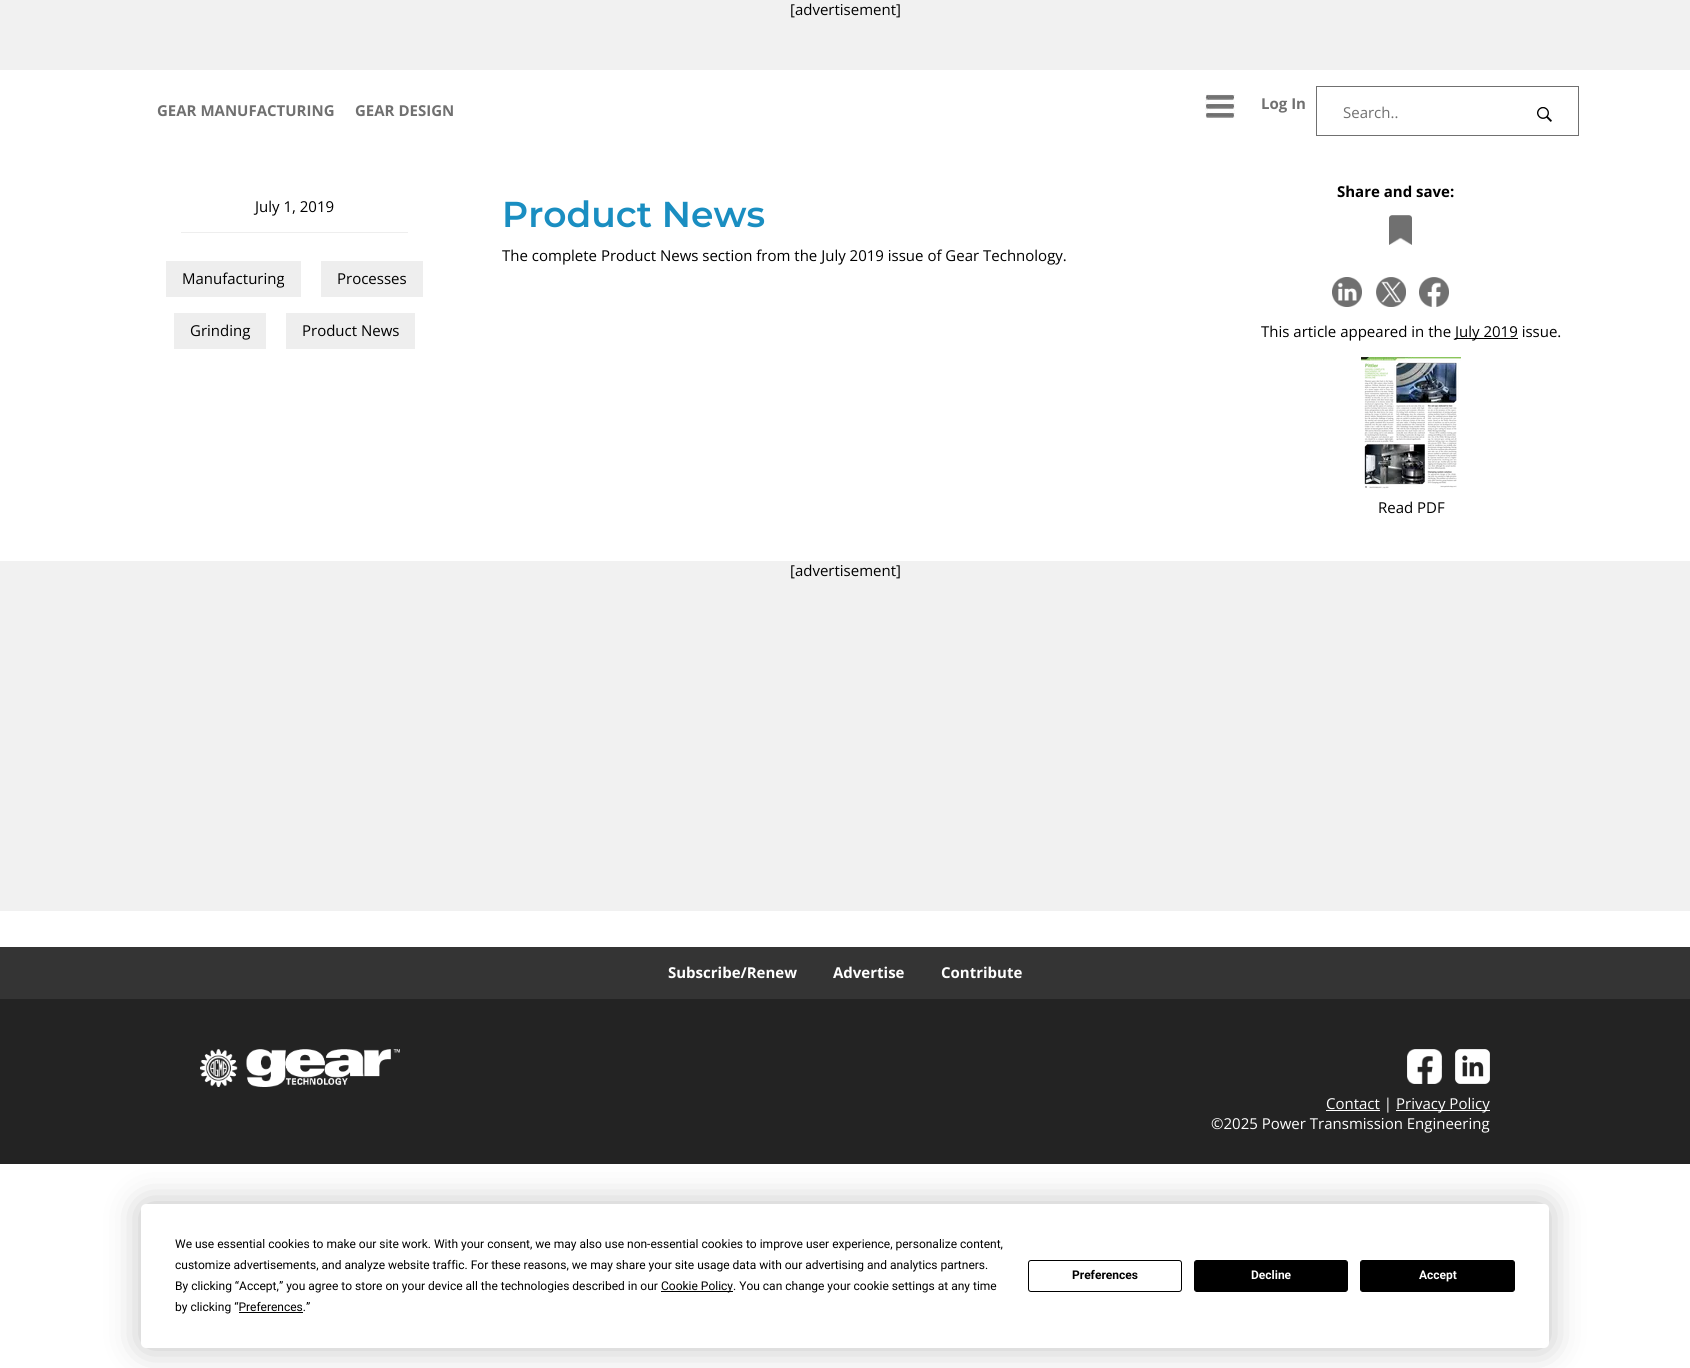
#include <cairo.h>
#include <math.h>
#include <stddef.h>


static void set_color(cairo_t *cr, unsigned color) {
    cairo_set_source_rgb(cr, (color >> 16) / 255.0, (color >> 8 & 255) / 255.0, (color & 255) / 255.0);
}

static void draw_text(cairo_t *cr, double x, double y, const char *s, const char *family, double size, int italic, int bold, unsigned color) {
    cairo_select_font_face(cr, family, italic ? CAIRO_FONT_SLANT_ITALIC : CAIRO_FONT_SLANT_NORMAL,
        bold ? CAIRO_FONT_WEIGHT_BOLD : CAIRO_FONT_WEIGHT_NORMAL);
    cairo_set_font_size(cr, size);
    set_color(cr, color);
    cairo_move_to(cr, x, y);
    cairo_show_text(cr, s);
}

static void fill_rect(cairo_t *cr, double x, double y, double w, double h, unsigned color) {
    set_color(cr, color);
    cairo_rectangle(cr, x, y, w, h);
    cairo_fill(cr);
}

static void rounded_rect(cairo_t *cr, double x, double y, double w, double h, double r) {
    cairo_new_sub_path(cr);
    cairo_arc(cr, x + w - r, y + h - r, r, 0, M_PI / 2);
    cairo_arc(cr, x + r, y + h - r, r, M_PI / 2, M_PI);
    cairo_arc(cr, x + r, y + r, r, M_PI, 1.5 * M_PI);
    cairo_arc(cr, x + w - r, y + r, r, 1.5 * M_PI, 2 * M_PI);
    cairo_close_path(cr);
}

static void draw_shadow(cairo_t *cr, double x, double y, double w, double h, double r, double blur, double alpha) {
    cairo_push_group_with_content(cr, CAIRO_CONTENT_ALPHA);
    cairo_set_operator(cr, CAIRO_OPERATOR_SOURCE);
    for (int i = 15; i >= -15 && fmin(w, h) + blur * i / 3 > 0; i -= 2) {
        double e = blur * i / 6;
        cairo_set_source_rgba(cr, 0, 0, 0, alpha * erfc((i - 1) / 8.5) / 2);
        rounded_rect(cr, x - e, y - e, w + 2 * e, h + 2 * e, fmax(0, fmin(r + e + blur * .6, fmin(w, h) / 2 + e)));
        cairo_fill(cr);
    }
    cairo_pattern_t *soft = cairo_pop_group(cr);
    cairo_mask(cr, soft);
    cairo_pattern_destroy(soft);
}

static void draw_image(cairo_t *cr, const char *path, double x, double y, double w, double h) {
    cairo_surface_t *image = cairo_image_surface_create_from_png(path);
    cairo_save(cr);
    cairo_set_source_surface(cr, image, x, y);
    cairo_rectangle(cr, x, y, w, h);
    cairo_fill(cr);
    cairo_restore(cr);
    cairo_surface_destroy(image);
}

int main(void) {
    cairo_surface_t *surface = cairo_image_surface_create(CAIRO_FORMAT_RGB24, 1690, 1368);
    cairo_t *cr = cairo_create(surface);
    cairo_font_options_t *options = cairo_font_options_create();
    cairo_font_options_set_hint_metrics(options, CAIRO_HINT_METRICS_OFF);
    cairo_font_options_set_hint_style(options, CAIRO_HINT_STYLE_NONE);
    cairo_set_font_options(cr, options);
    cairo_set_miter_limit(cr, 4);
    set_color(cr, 0xFFFFFF);
    cairo_paint(cr);
    fill_rect(cr, 0, 0, 1690, 70, 0xF1F1F1);
    draw_text(cr, 790, 15, "[advertisement]", "Open Sans", 15, 0, 0, 0x000000);
    draw_text(cr, 157, 116, "GEAR MANUFACTURING", "Open Sans", 15, 0, 1, 0x707070);
    draw_text(cr, 355, 116, "GEAR DESIGN", "Open Sans", 15, 0, 1, 0x707070);
    draw_image(cr, "assets/img1.png", 1205, 94, 30, 24);
    draw_text(cr, 1261, 109, "Log In", "Open Sans", 15, 0, 1, 0x707070);
    cairo_rectangle(cr, 1316.5, 86.5, 262, 49);
    cairo_set_line_width(cr, 1);
    cairo_stroke(cr);
    draw_text(cr, 1343, 118, "Search..", "Open Sans", 15, 0, 0, 0x707070);
    draw_image(cr, "assets/img2.png", 1537, 107, 15, 15);
    draw_text(cr, 255, 212, "July 1, 2019", "Open Sans", 15, 0, 0, 0x000000);
    fill_rect(cr, 181, 232, 227, 1, 0xEEEEEE);
    fill_rect(cr, 166, 261, 135, 36, 0xEEEEEE);
    draw_text(cr, 182, 284, "Manufacturing", "Open Sans", 15, 0, 0, 0x000000);
    fill_rect(cr, 321, 261, 102, 36, 0xEEEEEE);
    draw_text(cr, 337, 284, "Processes", "Open Sans", 15, 0, 0, 0x000000);
    fill_rect(cr, 174, 313, 92, 36, 0xEEEEEE);
    draw_text(cr, 190, 336, "Grinding", "Open Sans", 15, 0, 0, 0x000000);
    fill_rect(cr, 286, 313, 129, 36, 0xEEEEEE);
    draw_text(cr, 302, 336, "Product News", "Open Sans", 15, 0, 0, 0x000000);
    draw_text(cr, 502, 227, "Product News", "Montserrat SemiBold", 36, 0, 0, 0x1A8EC1);
    draw_text(cr, 502, 261, "The complete Product News section from the July 2019 issue of Gear Technology.", "Open Sans", 15, 0, 0, 0x000000);
    draw_text(cr, 1337, 197, "Share and save:", "Open Sans", 15, 0, 1, 0x000000);
    draw_image(cr, "assets/img3.png", 1389, 215, 23, 30);
    draw_image(cr, "assets/img4.png", 1332, 277, 30, 30);
    draw_image(cr, "assets/img5.png", 1376, 277, 30, 30);
    draw_image(cr, "assets/img6.png", 1419, 277, 30, 30);
    draw_text(cr, 1261, 337, "This article appeared in the", "Open Sans", 15, 0, 0, 0x000000);
    fill_rect(cr, 1455, 338, 63, 1, 0x000000);
    draw_text(cr, 1455, 337, "July 2019 issue.", "Open Sans", 15, 0, 0, 0x000000);
    draw_image(cr, "assets/img7.png", 1361, 357, 100, 132);
    draw_text(cr, 1378, 513, "Read PDF", "Open Sans", 15, 0, 0, 0x000000);
    fill_rect(cr, 0, 561, 1690, 350, 0xF1F1F1);
    draw_text(cr, 790, 576, "[advertisement]", "Open Sans", 15, 0, 0, 0x000000);
    fill_rect(cr, 0, 947, 1690, 52, 0x343434);
    draw_text(cr, 668, 978, "Subscribe/Renew", "Open Sans", 15, 0, 1, 0xFFFFFF);
    draw_text(cr, 833, 978, "Advertise", "Open Sans", 15, 0, 1, 0xFFFFFF);
    draw_text(cr, 941, 978, "Contribute", "Open Sans", 15, 0, 1, 0xFFFFFF);
    fill_rect(cr, 0, 999, 1690, 165, 0x232323);
    draw_image(cr, "assets/img8.png", 200, 1049, 200, 38);
    draw_image(cr, "assets/img9.png", 1407, 1049, 35, 35);
    draw_image(cr, "assets/img10.png", 1455, 1049, 35, 35);
    fill_rect(cr, 1326, 1110, 54, 1, 0xFFFFFF);
    draw_text(cr, 1326, 1109, "Contact |", "Open Sans", 15, 0, 0, 0xFFFFFF);
    fill_rect(cr, 1396, 1110, 94, 1, 0xFFFFFF);
    draw_text(cr, 1396, 1109, "Privacy Policy", "Open Sans", 15, 0, 0, 0xFFFFFF);
    draw_text(cr, 1211, 1129, "©2025 Power Transmission Engineering", "Open Sans", 15, 0, 0, 0xFFFFFF);
    set_color(cr, 0x000000);
    draw_shadow(cr, 141, 1204, 1408, 144, 5, 17.5, 0.25);
    set_color(cr, 0xFFFFFF);
    rounded_rect(cr, 141, 1204, 1408, 144, 5);
    cairo_fill(cr);
    draw_text(cr, 175, 1248, "We use essential cookies to make our site work. With your consent, we may also use non-essential cookies to improve user experience, personalize content,", "Roboto", 12, 0, 0, 0x000000);
    draw_text(cr, 175, 1269, "customize advertisements, and analyze website traffic. For these reasons, we may share your site usage data with our advertising and analytics partners.", "Roboto", 12, 0, 0, 0x000000);
    draw_text(cr, 175, 1290, "By clicking “Accept,” you agree to store on your device all the technologies described in our", "Roboto", 12, 0, 0, 0x000000);
    fill_rect(cr, 661, 1291, 72, 1, 0x000000);
    draw_text(cr, 661, 1290, "Cookie Policy. You can change your cookie settings at any time", "Roboto", 12, 0, 0, 0x000000);
    draw_text(cr, 175, 1311, "by clicking “Preferences.”", "Roboto", 12, 0, 0, 0x000000);
    fill_rect(cr, 239, 1312, 64, 1, 0x000000);
    rounded_rect(cr, 1028.5, 1260.5, 153, 31, 2.5);
    cairo_stroke(cr);
    draw_text(cr, 1072, 1279, "Preferences", "Roboto", 12, 0, 1, 0x000000);
    rounded_rect(cr, 1194.5, 1260.5, 153, 31, 2.5);
    cairo_fill_preserve(cr);
    cairo_stroke(cr);
    draw_text(cr, 1251, 1279, "Decline", "Roboto", 12, 0, 1, 0xFFFFFF);
    set_color(cr, 0x000000);
    rounded_rect(cr, 1360.5, 1260.5, 154, 31, 2.5);
    cairo_fill_preserve(cr);
    cairo_stroke(cr);
    draw_text(cr, 1419, 1279, "Accept", "Roboto", 12, 0, 1, 0xFFFFFF);
    cairo_surface_write_to_png(surface, "output.png");
    cairo_font_options_destroy(options);
    cairo_destroy(cr);
    cairo_surface_destroy(surface);
    return 0;
}
